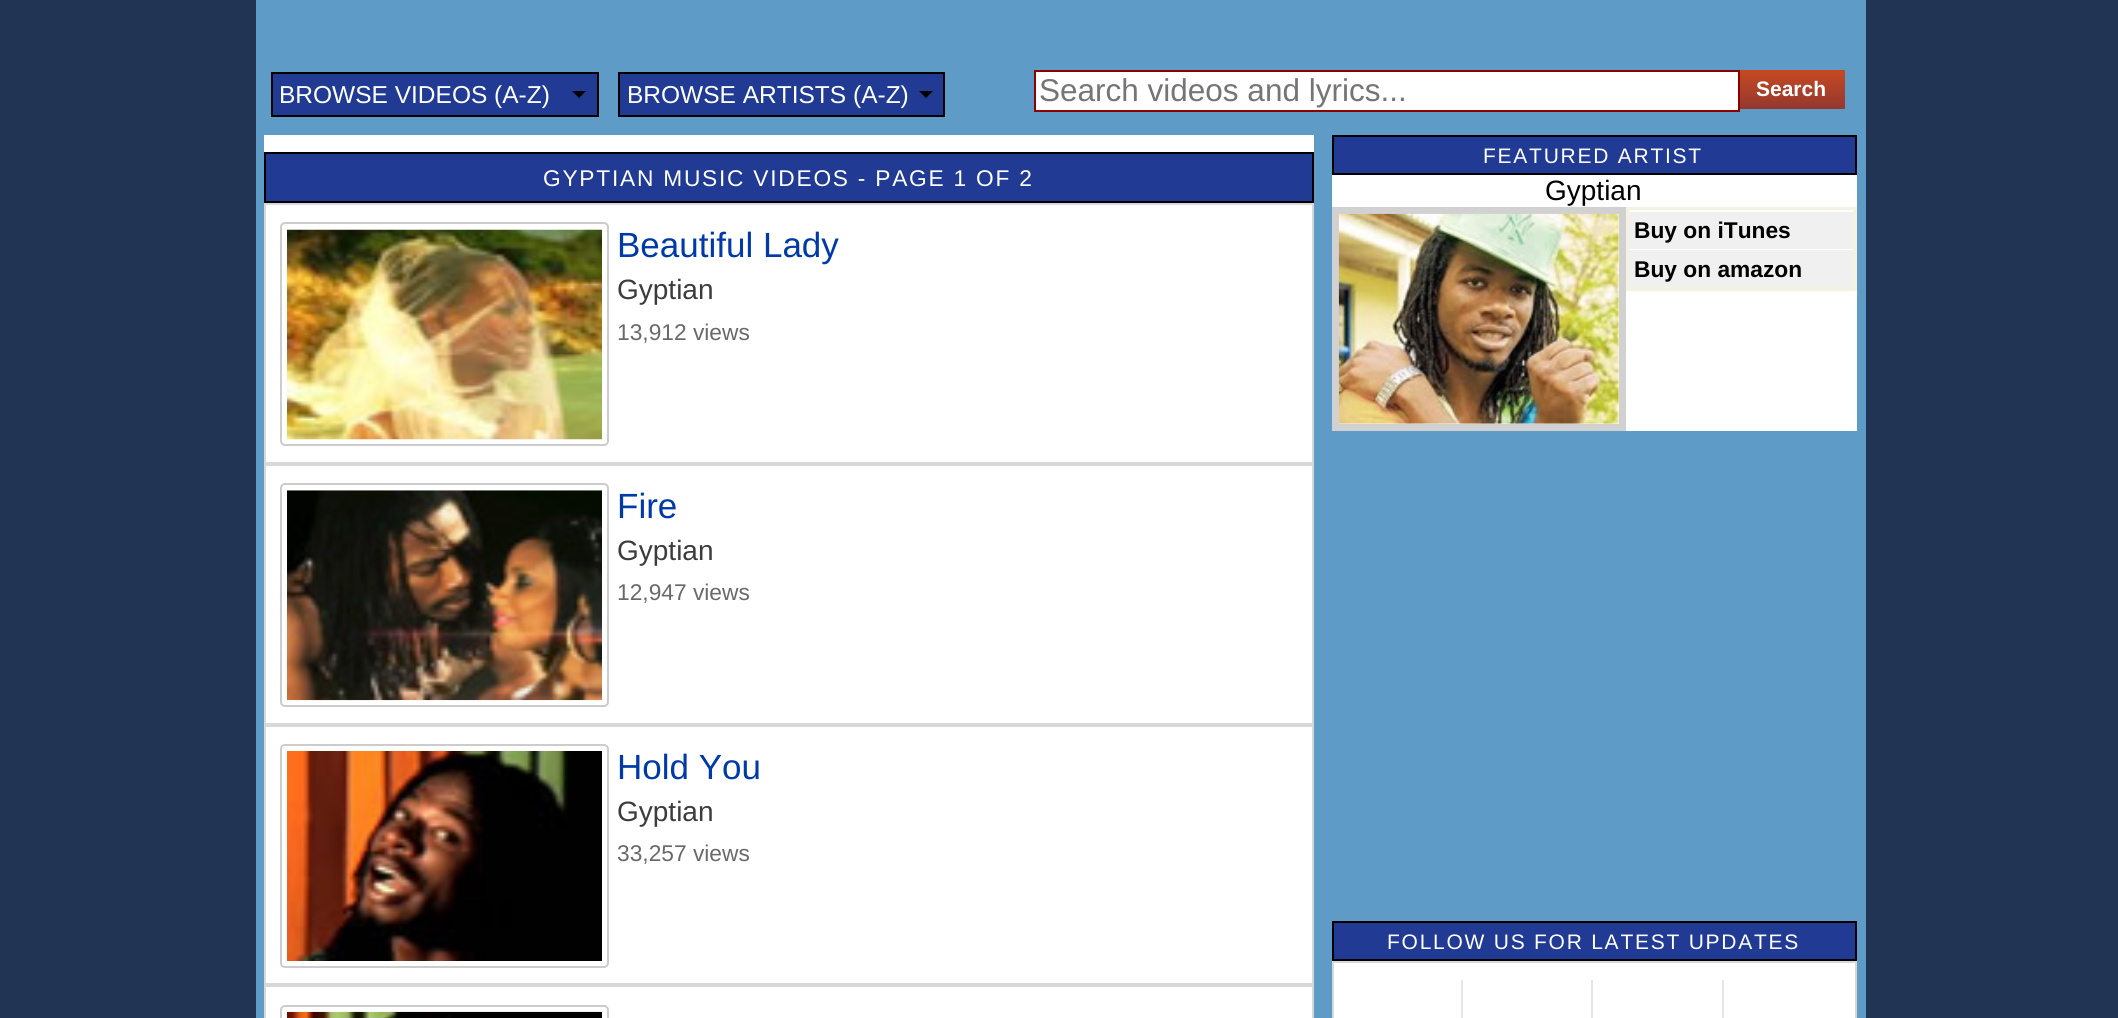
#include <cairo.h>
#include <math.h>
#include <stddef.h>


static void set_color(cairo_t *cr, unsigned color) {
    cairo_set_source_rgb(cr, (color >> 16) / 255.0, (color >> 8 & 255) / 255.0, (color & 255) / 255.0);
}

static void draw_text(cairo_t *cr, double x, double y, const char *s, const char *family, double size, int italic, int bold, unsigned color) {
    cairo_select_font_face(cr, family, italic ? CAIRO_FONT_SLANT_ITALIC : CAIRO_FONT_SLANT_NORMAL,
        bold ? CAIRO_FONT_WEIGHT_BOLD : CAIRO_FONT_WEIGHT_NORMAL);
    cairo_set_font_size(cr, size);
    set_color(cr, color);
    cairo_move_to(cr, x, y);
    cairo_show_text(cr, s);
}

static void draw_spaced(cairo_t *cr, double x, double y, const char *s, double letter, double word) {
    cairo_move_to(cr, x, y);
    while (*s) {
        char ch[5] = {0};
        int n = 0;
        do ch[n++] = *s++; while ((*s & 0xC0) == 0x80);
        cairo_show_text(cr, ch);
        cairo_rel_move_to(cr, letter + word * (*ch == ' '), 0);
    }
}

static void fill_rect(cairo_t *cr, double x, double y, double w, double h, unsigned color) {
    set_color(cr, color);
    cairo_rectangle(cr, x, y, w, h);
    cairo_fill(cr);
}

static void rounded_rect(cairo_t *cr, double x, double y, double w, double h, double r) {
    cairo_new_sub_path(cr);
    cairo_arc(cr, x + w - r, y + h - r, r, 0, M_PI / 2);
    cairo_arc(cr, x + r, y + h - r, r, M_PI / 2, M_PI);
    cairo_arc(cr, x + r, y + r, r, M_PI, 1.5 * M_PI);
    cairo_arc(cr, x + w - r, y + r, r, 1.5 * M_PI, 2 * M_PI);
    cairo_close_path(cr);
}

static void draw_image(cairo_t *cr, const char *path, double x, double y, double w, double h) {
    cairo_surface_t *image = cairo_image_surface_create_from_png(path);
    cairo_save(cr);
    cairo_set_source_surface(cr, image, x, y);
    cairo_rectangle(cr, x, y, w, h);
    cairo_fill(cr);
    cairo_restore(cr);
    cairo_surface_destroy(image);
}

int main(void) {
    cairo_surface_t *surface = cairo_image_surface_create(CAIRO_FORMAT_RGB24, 2118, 1018);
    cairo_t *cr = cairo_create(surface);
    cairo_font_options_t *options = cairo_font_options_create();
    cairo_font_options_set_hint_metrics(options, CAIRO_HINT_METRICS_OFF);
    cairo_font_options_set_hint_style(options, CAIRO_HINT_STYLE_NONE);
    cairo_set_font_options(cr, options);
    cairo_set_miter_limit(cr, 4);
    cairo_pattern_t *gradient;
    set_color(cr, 0x213453);
    cairo_paint(cr);
    fill_rect(cr, 256, 0, 1610, 1018, 0x5E9BC6);
    set_color(cr, 0x213A94);
    cairo_rectangle(cr, 272, 73, 326, 43);
    cairo_fill_preserve(cr);
    set_color(cr, 0x000000);
    cairo_stroke(cr);
    draw_text(cr, 279, 103, "BROWSE VIDEOS (A-Z)", "Liberation Sans", 24.5, 0, 0, 0xFFFFFF);
    set_color(cr, 0x000000);
    cairo_new_path(cr);
    cairo_move_to(cr, 572, 91);
    cairo_line_to(cr, 586, 91);
    cairo_line_to(cr, 579, 98);
    cairo_close_path(cr);
    cairo_fill(cr);
    set_color(cr, 0x213A94);
    cairo_rectangle(cr, 619, 73, 325, 43);
    cairo_fill_preserve(cr);
    set_color(cr, 0x000000);
    cairo_stroke(cr);
    draw_text(cr, 627, 103, "BROWSE ARTISTS (A-Z)", "Liberation Sans", 24.5, 0, 0, 0xFFFFFF);
    set_color(cr, 0x000000);
    cairo_new_path(cr);
    cairo_move_to(cr, 919, 91);
    cairo_line_to(cr, 933, 91);
    cairo_line_to(cr, 926, 98);
    cairo_close_path(cr);
    cairo_fill(cr);
    set_color(cr, 0xFFFFFF);
    cairo_rectangle(cr, 1035, 71, 704, 40);
    cairo_fill_preserve(cr);
    set_color(cr, 0x8B0000);
    cairo_stroke(cr);
    draw_text(cr, 1039, 101, "Search videos and lyrics...", "Liberation Sans", 31.5, 0, 0, 0x757575);
    gradient = cairo_pattern_create_linear(1740, 70, 1740, 109);
    cairo_pattern_add_color_stop_rgba(gradient, 0, 0.776, 0.286, 0.133, 1);
    cairo_pattern_add_color_stop_rgba(gradient, 1, 0.58, 0.22, 0.184, 1);
    cairo_set_source(cr, gradient);
    cairo_pattern_destroy(gradient);
    cairo_rectangle(cr, 1740, 70, 105, 39);
    cairo_fill(cr);
    draw_text(cr, 1756, 96, "Search", "Liberation Sans", 21, 0, 1, 0xFFFFFF);
    fill_rect(cr, 264, 135, 1050, 17, 0xFFFFFF);
    set_color(cr, 0x213A94);
    cairo_rectangle(cr, 265, 153, 1048, 49);
    cairo_fill_preserve(cr);
    set_color(cr, 0x000000);
    cairo_stroke(cr);
    cairo_select_font_face(cr, "Liberation Sans", CAIRO_FONT_SLANT_NORMAL, CAIRO_FONT_WEIGHT_NORMAL);
    cairo_set_font_size(cr, 22.75);
    set_color(cr, 0xFFFFFF);
    draw_spaced(cr, 543, 186, "GYPTIAN MUSIC VIDEOS - PAGE 1 OF 2", 1.75, 0);
    cairo_rectangle(cr, 265, 204, 1048, 259);
    cairo_fill_preserve(cr);
    set_color(cr, 0xD8D8D8);
    cairo_stroke(cr);
    rounded_rect(cr, 281, 223, 327, 222, 4);
    set_color(cr, 0xCCCCCC);
    cairo_stroke(cr);
    draw_image(cr, "assets/img1.png", 287, 229, 315, 211);
    draw_text(cr, 617, 257, "Beautiful Lady", "Liberation Sans", 35, 0, 0, 0x003AA8);
    draw_text(cr, 617, 299, "Gyptian", "Liberation Sans", 28, 0, 0, 0x3C3C3C);
    draw_text(cr, 617, 340, "13,912 views", "Liberation Sans", 22.75, 0, 0, 0x696969);
    set_color(cr, 0xFFFFFF);
    cairo_rectangle(cr, 265, 465, 1048, 259);
    cairo_fill_preserve(cr);
    set_color(cr, 0xD8D8D8);
    cairo_stroke(cr);
    rounded_rect(cr, 281, 484, 327, 222, 4);
    set_color(cr, 0xCCCCCC);
    cairo_stroke(cr);
    draw_image(cr, "assets/img2.png", 287, 490, 315, 211);
    draw_text(cr, 617, 518, "Fire", "Liberation Sans", 35, 0, 0, 0x003AA8);
    draw_text(cr, 617, 560, "Gyptian", "Liberation Sans", 28, 0, 0, 0x3C3C3C);
    draw_text(cr, 617, 600, "12,947 views", "Liberation Sans", 22.75, 0, 0, 0x696969);
    set_color(cr, 0xFFFFFF);
    cairo_rectangle(cr, 265, 726, 1048, 258);
    cairo_fill_preserve(cr);
    set_color(cr, 0xD8D8D8);
    cairo_stroke(cr);
    rounded_rect(cr, 281, 745, 327, 222, 4);
    set_color(cr, 0xCCCCCC);
    cairo_stroke(cr);
    draw_image(cr, "assets/img3.png", 287, 751, 315, 210);
    draw_text(cr, 617, 779, "Hold You", "Liberation Sans", 35, 0, 0, 0x003AA8);
    draw_text(cr, 617, 821, "Gyptian", "Liberation Sans", 28, 0, 0, 0x3C3C3C);
    draw_text(cr, 617, 861, "33,257 views", "Liberation Sans", 22.75, 0, 0, 0x696969);
    set_color(cr, 0xFFFFFF);
    cairo_rectangle(cr, 265, 986, 1048, 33);
    cairo_fill_preserve(cr);
    set_color(cr, 0xD8D8D8);
    cairo_stroke(cr);
    rounded_rect(cr, 281, 1006, 327, 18, 4);
    set_color(cr, 0xCCCCCC);
    cairo_stroke(cr);
    draw_image(cr, "assets/img4.png", 287, 1011, 315, 7);
    fill_rect(cr, 1332, 175, 525, 256, 0xFFFFFF);
    set_color(cr, 0x213A94);
    cairo_rectangle(cr, 1333, 136, 523, 38);
    cairo_fill_preserve(cr);
    set_color(cr, 0x000000);
    cairo_stroke(cr);
    cairo_set_font_size(cr, 21);
    set_color(cr, 0xFFFFFF);
    draw_spaced(cr, 1483, 163, "FEATURED ARTIST", 1.75, 0);
    draw_text(cr, 1545, 200, "Gyptian", "Liberation Sans", 28, 0, 0, 0x000000);
    cairo_rectangle(cr, 1335.5, 210.5, 287, 217);
    set_color(cr, 0xD1D1D1);
    cairo_set_line_width(cr, 7);
    cairo_stroke(cr);
    draw_image(cr, "assets/img5.png", 1338, 213, 281, 211);
    fill_rect(cr, 1626, 207, 231, 84, 0xF4F2E1);
    fill_rect(cr, 1629, 210, 224, 2, 0xFFFFFF);
    fill_rect(cr, 1629, 212, 224, 37, 0xF0F0F0);
    draw_text(cr, 1634, 238, "Buy on iTunes", "Liberation Sans", 22.75, 0, 1, 0x000000);
    fill_rect(cr, 1629, 249, 224, 1, 0xFFFFFF);
    fill_rect(cr, 1629, 250, 224, 37, 0xF0F0F0);
    draw_text(cr, 1634, 277, "Buy on amazon", "Liberation Sans", 22.75, 0, 1, 0x000000);
    set_color(cr, 0x213A94);
    cairo_rectangle(cr, 1333, 922, 523, 38);
    cairo_fill_preserve(cr);
    set_color(cr, 0x000000);
    cairo_set_line_width(cr, 2);
    cairo_stroke(cr);
    cairo_select_font_face(cr, "Liberation Sans", CAIRO_FONT_SLANT_NORMAL, CAIRO_FONT_WEIGHT_NORMAL);
    cairo_set_font_size(cr, 21);
    set_color(cr, 0xFFFFFF);
    draw_spaced(cr, 1387, 949, "FOLLOW US FOR LATEST UPDATES", 1.75, 0);
    cairo_rectangle(cr, 1333, 962, 523, 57);
    cairo_fill_preserve(cr);
    set_color(cr, 0xD8D8D8);
    cairo_stroke(cr);
    fill_rect(cr, 1461, 980, 2, 38, 0xE6E6E6);
    fill_rect(cr, 1591, 980, 2, 38, 0xE6E6E6);
    fill_rect(cr, 1722, 980, 2, 38, 0xE6E6E6);
    cairo_surface_write_to_png(surface, "output.png");
    cairo_font_options_destroy(options);
    cairo_destroy(cr);
    cairo_surface_destroy(surface);
    return 0;
}
